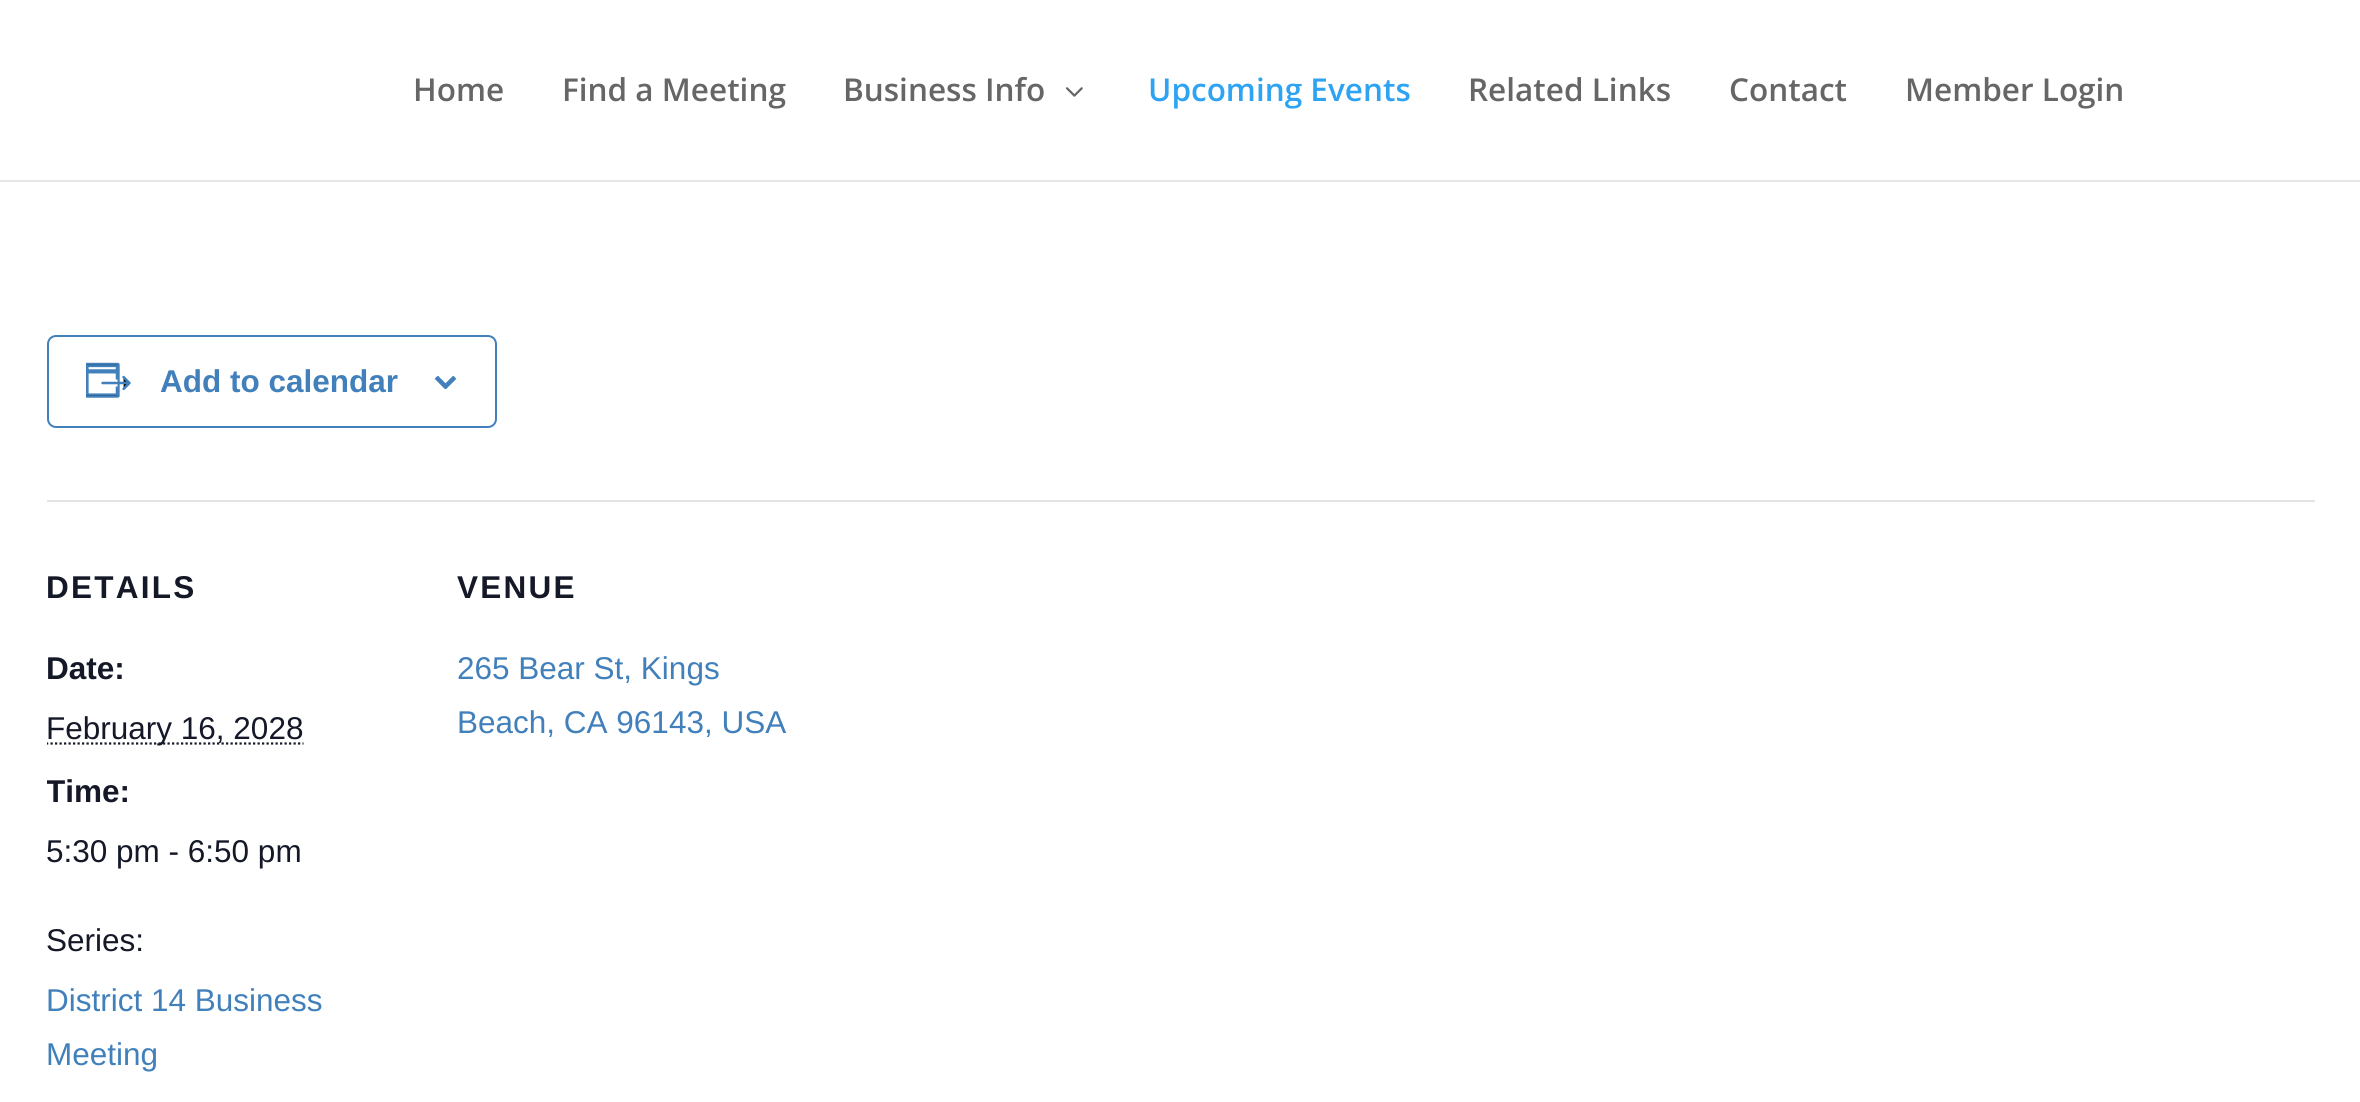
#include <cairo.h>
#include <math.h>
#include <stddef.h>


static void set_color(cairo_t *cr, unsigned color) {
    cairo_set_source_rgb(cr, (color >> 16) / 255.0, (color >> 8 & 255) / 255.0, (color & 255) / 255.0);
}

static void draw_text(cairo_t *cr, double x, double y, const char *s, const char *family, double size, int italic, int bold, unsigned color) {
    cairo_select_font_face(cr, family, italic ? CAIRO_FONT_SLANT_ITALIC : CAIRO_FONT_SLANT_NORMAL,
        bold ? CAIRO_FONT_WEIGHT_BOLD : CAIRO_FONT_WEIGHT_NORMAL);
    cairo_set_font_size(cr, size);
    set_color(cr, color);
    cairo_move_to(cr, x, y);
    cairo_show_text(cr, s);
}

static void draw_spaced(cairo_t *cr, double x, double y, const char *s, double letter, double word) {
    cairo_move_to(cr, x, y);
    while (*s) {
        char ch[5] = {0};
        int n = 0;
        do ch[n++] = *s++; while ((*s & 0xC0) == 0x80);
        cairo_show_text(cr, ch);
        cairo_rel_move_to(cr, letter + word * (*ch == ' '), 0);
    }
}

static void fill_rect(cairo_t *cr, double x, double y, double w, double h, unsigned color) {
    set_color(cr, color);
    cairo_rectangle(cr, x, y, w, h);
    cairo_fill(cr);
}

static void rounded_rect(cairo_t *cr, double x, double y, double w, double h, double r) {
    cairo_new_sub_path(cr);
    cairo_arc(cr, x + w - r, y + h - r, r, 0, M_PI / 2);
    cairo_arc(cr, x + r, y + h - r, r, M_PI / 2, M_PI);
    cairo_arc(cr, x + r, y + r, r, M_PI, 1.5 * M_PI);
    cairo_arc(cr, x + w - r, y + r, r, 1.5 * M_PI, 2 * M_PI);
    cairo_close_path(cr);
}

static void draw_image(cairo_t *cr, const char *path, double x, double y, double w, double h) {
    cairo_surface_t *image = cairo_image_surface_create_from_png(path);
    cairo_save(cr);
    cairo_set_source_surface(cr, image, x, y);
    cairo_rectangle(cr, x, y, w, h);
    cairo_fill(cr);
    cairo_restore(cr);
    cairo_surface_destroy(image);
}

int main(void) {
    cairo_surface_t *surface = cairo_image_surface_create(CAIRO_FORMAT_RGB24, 2360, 1102);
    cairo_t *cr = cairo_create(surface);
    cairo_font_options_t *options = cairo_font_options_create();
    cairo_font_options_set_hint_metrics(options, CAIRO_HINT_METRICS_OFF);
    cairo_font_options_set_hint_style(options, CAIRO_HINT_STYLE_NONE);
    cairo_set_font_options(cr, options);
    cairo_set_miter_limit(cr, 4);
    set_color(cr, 0xFFFFFF);
    cairo_paint(cr);
    fill_rect(cr, 0, 180, 2360, 2, 0xE6E6E6);
    draw_text(cr, 413, 101, "Home", "Open Sans SemiBold", 31.5, 0, 0, 0x666666);
    draw_text(cr, 562, 101, "Find a Meeting", "Open Sans SemiBold", 31.5, 0, 0, 0x666666);
    draw_text(cr, 843, 101, "Business Info", "Open Sans SemiBold", 31.5, 0, 0, 0x666666);
    draw_image(cr, "assets/img1.png", 1066, 87, 17, 10);
    draw_text(cr, 1148, 101, "Upcoming Events", "Open Sans SemiBold", 31.5, 0, 0, 0x2EA3F2);
    draw_text(cr, 1468, 101, "Related Links", "Open Sans SemiBold", 31.5, 0, 0, 0x666666);
    draw_text(cr, 1729, 101, "Contact", "Open Sans SemiBold", 31.5, 0, 0, 0x666666);
    draw_text(cr, 1905, 101, "Member Login", "Open Sans SemiBold", 31.5, 0, 0, 0x666666);
    rounded_rect(cr, 48, 336, 448, 91, 8);
    set_color(cr, 0x4180BB);
    cairo_stroke(cr);
    draw_image(cr, "assets/img2.png", 86, 362, 45, 36);
    draw_text(cr, 160, 392, "Add to calendar", "Liberation Sans", 31.5, 0, 1, 0x4180BB);
    draw_image(cr, "assets/img3.png", 434, 376, 23, 13);
    fill_rect(cr, 47, 500, 2268, 2, 0xE4E4E4);
    set_color(cr, 0x141827);
    draw_spaced(cr, 46, 598, "DETAILS", 2.25, 0);
    draw_text(cr, 46, 679, "Date:", "Liberation Sans", 31.5, 0, 1, 0x141827);
    cairo_save(cr);
    cairo_rectangle(cr, 47, 0, 2268, 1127);
    cairo_clip(cr);
    cairo_new_path(cr);
    cairo_move_to(cr, 46, 743.5);
    cairo_line_to(cr, 303.5, 743.5);
    cairo_set_line_width(cr, 2.2);
    cairo_set_dash(cr, (double[]){2.25, 2.25}, 2, 0);
    cairo_stroke(cr);
    cairo_restore(cr);
    draw_text(cr, 46, 739, "February 16, 2028", "Liberation Sans", 31.5, 0, 0, 0x141827);
    cairo_save(cr);
    cairo_rectangle(cr, 47, 0, 2268, 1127);
    cairo_clip(cr);
    draw_text(cr, 46, 802, "Time:", "Liberation Sans", 31.5, 0, 1, 0x141827);
    cairo_restore(cr);
    draw_text(cr, 46, 862, "5:30 pm - 6:50 pm", "Liberation Sans", 31.5, 0, 0, 0x141827);
    draw_text(cr, 46, 951, "Series:", "Liberation Sans", 31.5, 0, 0, 0x141827);
    draw_text(cr, 46, 1011, "District 14 Business", "Liberation Sans", 31.5, 0, 0, 0x4180BB);
    draw_text(cr, 46, 1065, "Meeting", "Liberation Sans", 31.5, 0, 0, 0x4180BB);
    cairo_select_font_face(cr, "Liberation Sans", CAIRO_FONT_SLANT_NORMAL, CAIRO_FONT_WEIGHT_BOLD);
    set_color(cr, 0x141827);
    draw_spaced(cr, 457, 598, "VENUE", 2.25, 0);
    draw_text(cr, 457, 679, "265 Bear St, Kings", "Liberation Sans", 31.5, 0, 0, 0x4180BB);
    draw_text(cr, 457, 733, "Beach, CA 96143, USA", "Liberation Sans", 31.5, 0, 0, 0x4180BB);
    cairo_surface_write_to_png(surface, "output.png");
    cairo_font_options_destroy(options);
    cairo_destroy(cr);
    cairo_surface_destroy(surface);
    return 0;
}
